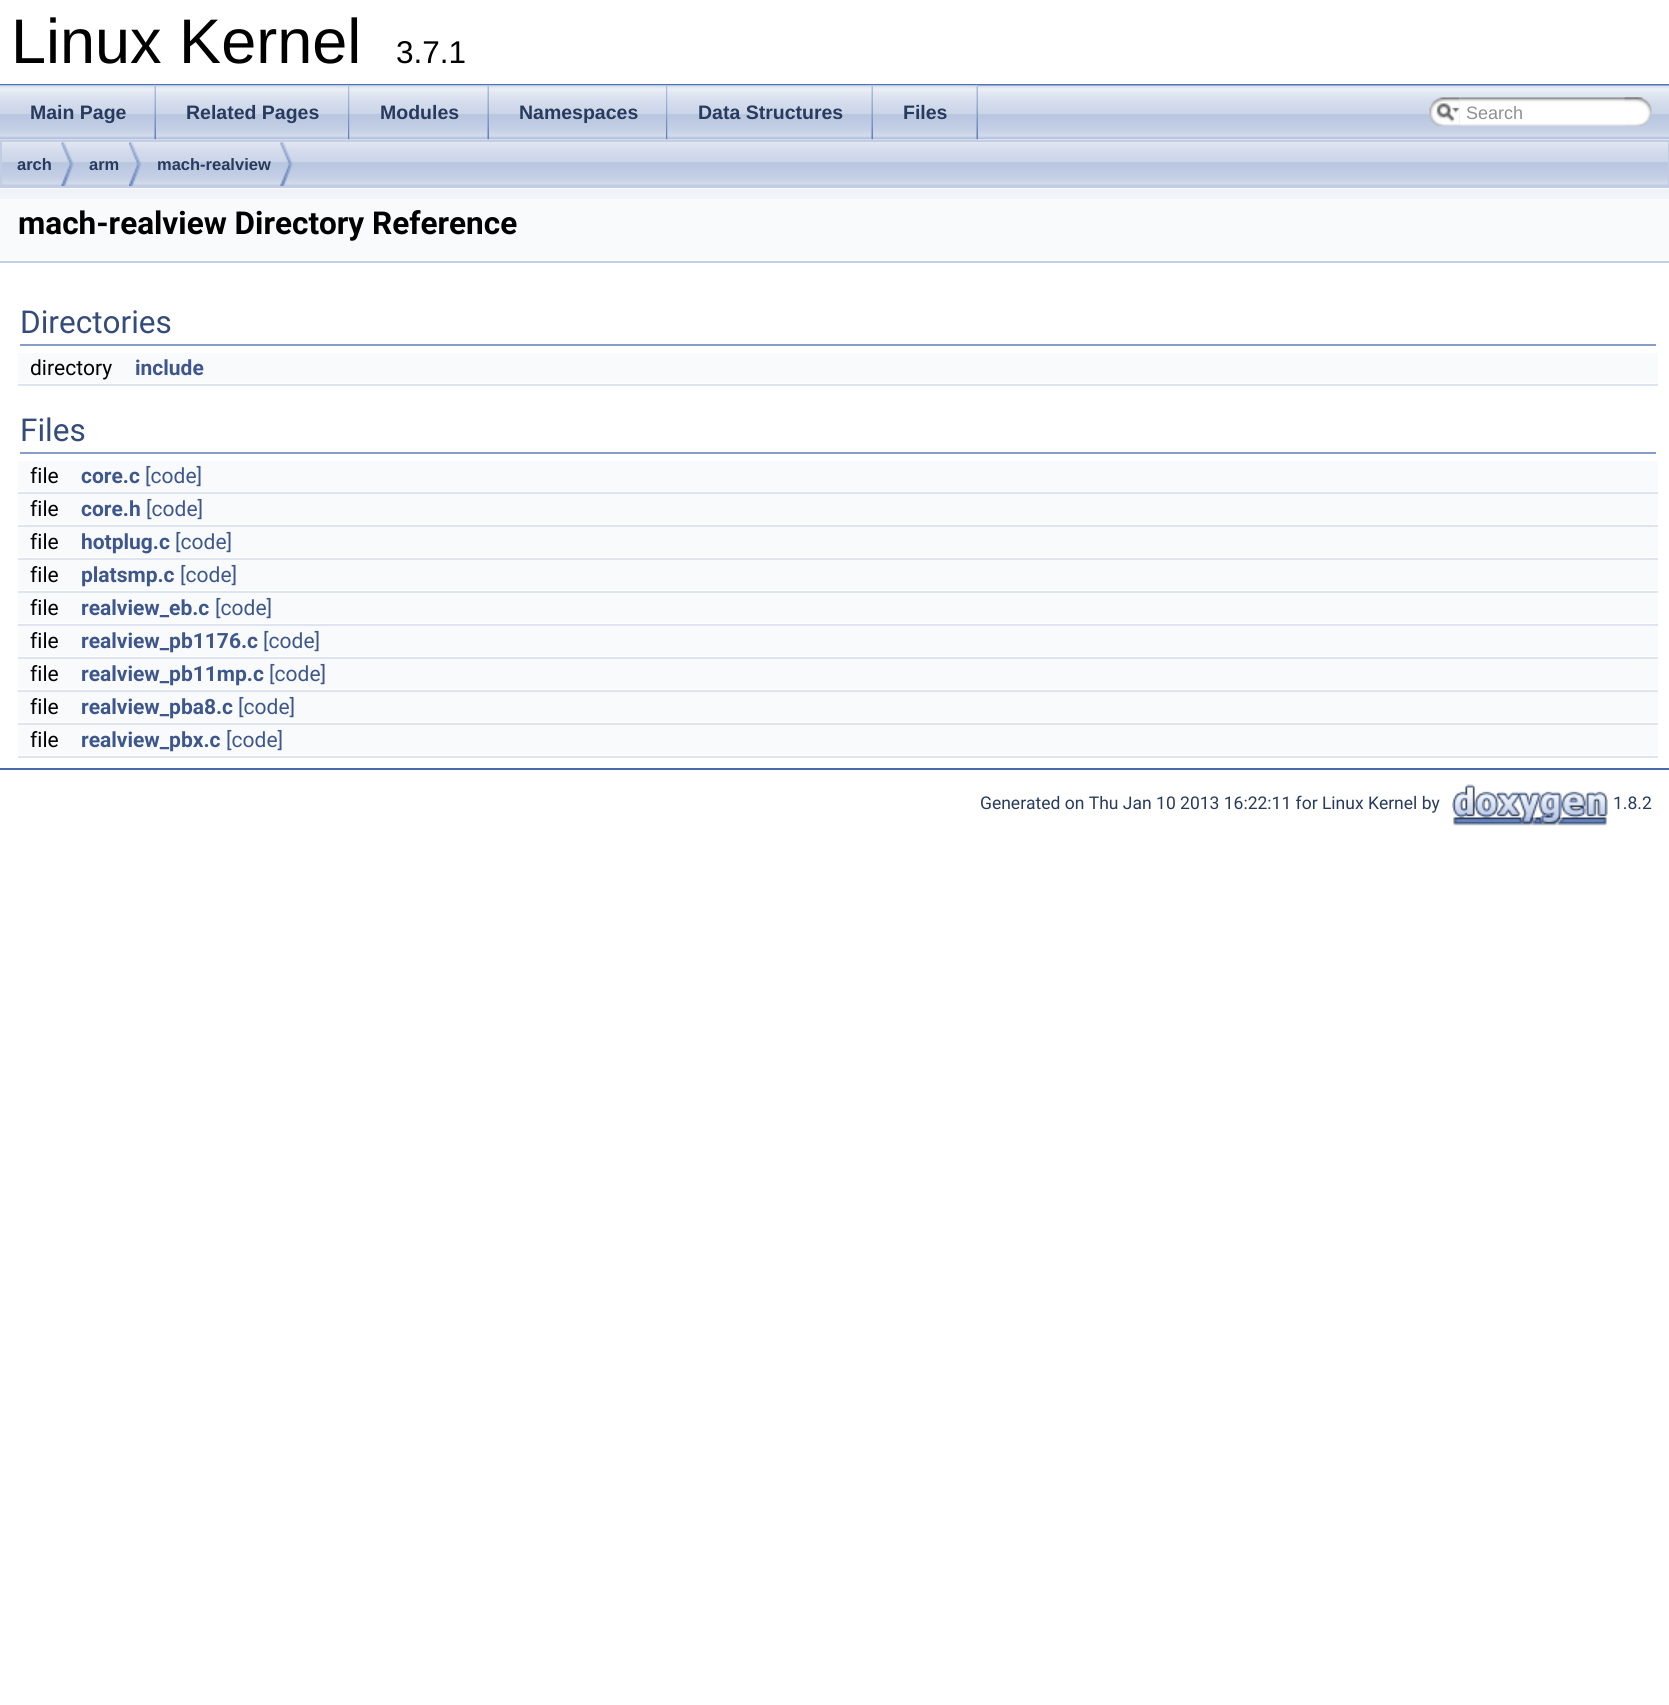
#include <cairo.h>
#include <math.h>
#include <stddef.h>


static void set_color(cairo_t *cr, unsigned color) {
    cairo_set_source_rgb(cr, (color >> 16) / 255.0, (color >> 8 & 255) / 255.0, (color & 255) / 255.0);
}

static void draw_text(cairo_t *cr, double x, double y, const char *s, const char *family, double size, int italic, int bold, unsigned color) {
    cairo_select_font_face(cr, family, italic ? CAIRO_FONT_SLANT_ITALIC : CAIRO_FONT_SLANT_NORMAL,
        bold ? CAIRO_FONT_WEIGHT_BOLD : CAIRO_FONT_WEIGHT_NORMAL);
    cairo_set_font_size(cr, size);
    set_color(cr, color);
    cairo_move_to(cr, x, y);
    cairo_show_text(cr, s);
}

static void fill_rect(cairo_t *cr, double x, double y, double w, double h, unsigned color) {
    set_color(cr, color);
    cairo_rectangle(cr, x, y, w, h);
    cairo_fill(cr);
}

static void draw_image(cairo_t *cr, const char *path, double x, double y, double w, double h) {
    cairo_surface_t *image = cairo_image_surface_create_from_png(path);
    cairo_save(cr);
    cairo_set_source_surface(cr, image, x, y);
    cairo_rectangle(cr, x, y, w, h);
    cairo_fill(cr);
    cairo_restore(cr);
    cairo_surface_destroy(image);
}

int main(void) {
    cairo_surface_t *surface = cairo_image_surface_create(CAIRO_FORMAT_RGB24, 1669, 1705);
    cairo_t *cr = cairo_create(surface);
    cairo_font_options_t *options = cairo_font_options_create();
    cairo_font_options_set_hint_metrics(options, CAIRO_HINT_METRICS_OFF);
    cairo_font_options_set_hint_style(options, CAIRO_HINT_STYLE_NONE);
    cairo_set_font_options(cr, options);
    cairo_set_miter_limit(cr, 4);
    set_color(cr, 0xFFFFFF);
    cairo_paint(cr);
    fill_rect(cr, 0, 84, 1669, 2, 0x5373B4);
    draw_text(cr, 11, 63, "Linux Kernel", "Liberation Sans", 63, 0, 0, 0x000000);
    draw_text(cr, 396, 63, "3.7.1", "Liberation Sans", 31.5, 0, 0, 0x000000);
    draw_image(cr, "assets/img1.png", 0, 85, 1669, 55);
    draw_image(cr, "assets/img2.png", 0, 85, 156, 55);
    draw_image(cr, "assets/img3.png", 154, 86, 2, 54);
    draw_text(cr, 30, 119, "Main Page", "Liberation Sans", 19.5, 0, 1, 0x283A5D);
    draw_image(cr, "assets/img4.png", 156, 85, 194, 55);
    draw_image(cr, "assets/img5.png", 348, 86, 2, 54);
    draw_text(cr, 186, 119, "Related Pages", "Liberation Sans", 19.5, 0, 1, 0x283A5D);
    draw_image(cr, "assets/img6.png", 349, 85, 140, 55);
    draw_image(cr, "assets/img3.png", 487, 86, 2, 54);
    draw_text(cr, 380, 119, "Modules", "Liberation Sans", 19.5, 0, 1, 0x283A5D);
    draw_image(cr, "assets/img7.png", 489, 85, 179, 55);
    draw_image(cr, "assets/img5.png", 666, 86, 2, 54);
    draw_text(cr, 519, 119, "Namespaces", "Liberation Sans", 19.5, 0, 1, 0x283A5D);
    draw_image(cr, "assets/img8.png", 667, 85, 206, 55);
    draw_image(cr, "assets/img3.png", 871, 86, 2, 54);
    draw_text(cr, 698, 119, "Data Structures", "Liberation Sans", 19.5, 0, 1, 0x283A5D);
    draw_image(cr, "assets/img9.png", 873, 85, 105, 55);
    draw_image(cr, "assets/img3.png", 976, 86, 2, 54);
    draw_text(cr, 903, 119, "Files", "Liberation Sans", 19.5, 0, 1, 0x283A5D);
    draw_image(cr, "assets/img10.png", 1429, 97, 31, 29);
    draw_image(cr, "assets/img11.png", 1436, 103, 24, 19);
    draw_image(cr, "assets/img12.png", 1459, 97, 184, 29);
    draw_text(cr, 1466, 119, "Search", "Liberation Sans", 18, 0, 0, 0x909090);
    draw_image(cr, "assets/img13.png", 1624, 97, 28, 29);
    draw_image(cr, "assets/img14.png", 0, 139, 1669, 47);
    cairo_rectangle(cr, 1, 141, 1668, 46);
    set_color(cr, 0xC2CDE4);
    cairo_stroke(cr);
    draw_image(cr, "assets/img15.png", 61, 142, 13, 44);
    draw_text(cr, 17, 170, "arch", "Liberation Sans", 16.5, 0, 1, 0x283A5D);
    draw_image(cr, "assets/img16.png", 129, 142, 12, 44);
    draw_text(cr, 89, 170, "arm", "Liberation Sans", 16.5, 0, 1, 0x283A5D);
    draw_image(cr, "assets/img17.png", 280, 142, 13, 44);
    draw_text(cr, 157, 170, "mach-realview", "Liberation Sans", 16.5, 0, 1, 0x283A5D);
    fill_rect(cr, 0, 188, 1669, 73, 0xF9FAFC);
    draw_image(cr, "assets/img18.png", 0, 189, 1669, 10);
    fill_rect(cr, 0, 261, 1669, 2, 0xC4CFE5);
    draw_text(cr, 18, 234, "mach-realview Directory Reference", "Roboto", 31.5, 0, 1, 0x000000);
    fill_rect(cr, 20, 344, 1636, 2, 0x879ECB);
    draw_text(cr, 20, 333, "Directories", "Roboto", 31.5, 0, 0, 0x354C7B);
    fill_rect(cr, 18, 353, 1640, 30, 0xF9FAFC);
    draw_text(cr, 30, 375, "directory", "Roboto", 21, 0, 0, 0x000000);
    draw_text(cr, 135, 375, "include", "Roboto", 21, 0, 1, 0x3D578C);
    fill_rect(cr, 18, 384, 1640, 2, 0xDEE4F0);
    fill_rect(cr, 20, 452, 1636, 2, 0x879ECB);
    draw_text(cr, 20, 441, "Files", "Roboto", 31.5, 0, 0, 0x354C7B);
    fill_rect(cr, 18, 461, 1640, 30, 0xF9FAFC);
    draw_text(cr, 30, 483, "file", "Roboto", 21, 0, 0, 0x000000);
    draw_text(cr, 81, 483, "core.c", "Roboto", 21, 0, 1, 0x3D578C);
    draw_text(cr, 145, 483, "[code]", "Roboto", 21, 0, 0, 0x3D578C);
    fill_rect(cr, 18, 492, 1640, 2, 0xDEE4F0);
    fill_rect(cr, 18, 494, 1640, 30, 0xF9FAFC);
    draw_text(cr, 30, 516, "file", "Roboto", 21, 0, 0, 0x000000);
    draw_text(cr, 81, 516, "core.h", "Roboto", 21, 0, 1, 0x3D578C);
    draw_text(cr, 146, 516, "[code]", "Roboto", 21, 0, 0, 0x3D578C);
    fill_rect(cr, 18, 525, 1640, 2, 0xDEE4F0);
    fill_rect(cr, 18, 527, 1640, 30, 0xF9FAFC);
    draw_text(cr, 30, 549, "file", "Roboto", 21, 0, 0, 0x000000);
    draw_text(cr, 81, 549, "hotplug.c", "Roboto", 21, 0, 1, 0x3D578C);
    draw_text(cr, 175, 549, "[code]", "Roboto", 21, 0, 0, 0x3D578C);
    fill_rect(cr, 18, 558, 1640, 2, 0xDEE4F0);
    fill_rect(cr, 18, 560, 1640, 30, 0xF9FAFC);
    draw_text(cr, 30, 582, "file", "Roboto", 21, 0, 0, 0x000000);
    draw_text(cr, 81, 582, "platsmp.c", "Roboto", 21, 0, 1, 0x3D578C);
    draw_text(cr, 180, 582, "[code]", "Roboto", 21, 0, 0, 0x3D578C);
    fill_rect(cr, 18, 591, 1640, 2, 0xDEE4F0);
    fill_rect(cr, 18, 593, 1640, 30, 0xF9FAFC);
    draw_text(cr, 30, 615, "file", "Roboto", 21, 0, 0, 0x000000);
    draw_text(cr, 81, 615, "realview_eb.c", "Roboto", 21, 0, 1, 0x3D578C);
    draw_text(cr, 215, 615, "[code]", "Roboto", 21, 0, 0, 0x3D578C);
    fill_rect(cr, 18, 624, 1640, 2, 0xDEE4F0);
    fill_rect(cr, 18, 626, 1640, 30, 0xF9FAFC);
    draw_text(cr, 30, 648, "file", "Roboto", 21, 0, 0, 0x000000);
    draw_text(cr, 81, 648, "realview_pb1176.c", "Roboto", 21, 0, 1, 0x3D578C);
    draw_text(cr, 263, 648, "[code]", "Roboto", 21, 0, 0, 0x3D578C);
    fill_rect(cr, 18, 657, 1640, 2, 0xDEE4F0);
    fill_rect(cr, 18, 659, 1640, 30, 0xF9FAFC);
    draw_text(cr, 30, 681, "file", "Roboto", 21, 0, 0, 0x000000);
    draw_text(cr, 81, 681, "realview_pb11mp.c", "Roboto", 21, 0, 1, 0x3D578C);
    draw_text(cr, 269, 681, "[code]", "Roboto", 21, 0, 0, 0x3D578C);
    fill_rect(cr, 18, 690, 1640, 2, 0xDEE4F0);
    fill_rect(cr, 18, 692, 1640, 30, 0xF9FAFC);
    draw_text(cr, 30, 714, "file", "Roboto", 21, 0, 0, 0x000000);
    draw_text(cr, 81, 714, "realview_pba8.c", "Roboto", 21, 0, 1, 0x3D578C);
    draw_text(cr, 238, 714, "[code]", "Roboto", 21, 0, 0, 0x3D578C);
    fill_rect(cr, 18, 723, 1640, 2, 0xDEE4F0);
    fill_rect(cr, 18, 725, 1640, 30, 0xF9FAFC);
    draw_text(cr, 30, 747, "file", "Roboto", 21, 0, 0, 0x000000);
    draw_text(cr, 81, 747, "realview_pbx.c", "Roboto", 21, 0, 1, 0x3D578C);
    draw_text(cr, 226, 747, "[code]", "Roboto", 21, 0, 0, 0x3D578C);
    fill_rect(cr, 18, 756, 1640, 2, 0xDEE4F0);
    fill_rect(cr, 0, 768, 1669, 2, 0x4A6AAA);
    draw_text(cr, 980, 809, "Generated on Thu Jan 10 2013 16:22:11 for Linux Kernel by", "Roboto", 17.5, 0, 0, 0x283A5D);
    draw_image(cr, "assets/img19.png", 1452, 784, 156, 42);
    draw_text(cr, 1613, 809, "1.8.2", "Roboto", 17.5, 0, 0, 0x283A5D);
    cairo_surface_write_to_png(surface, "output.png");
    cairo_font_options_destroy(options);
    cairo_destroy(cr);
    cairo_surface_destroy(surface);
    return 0;
}
